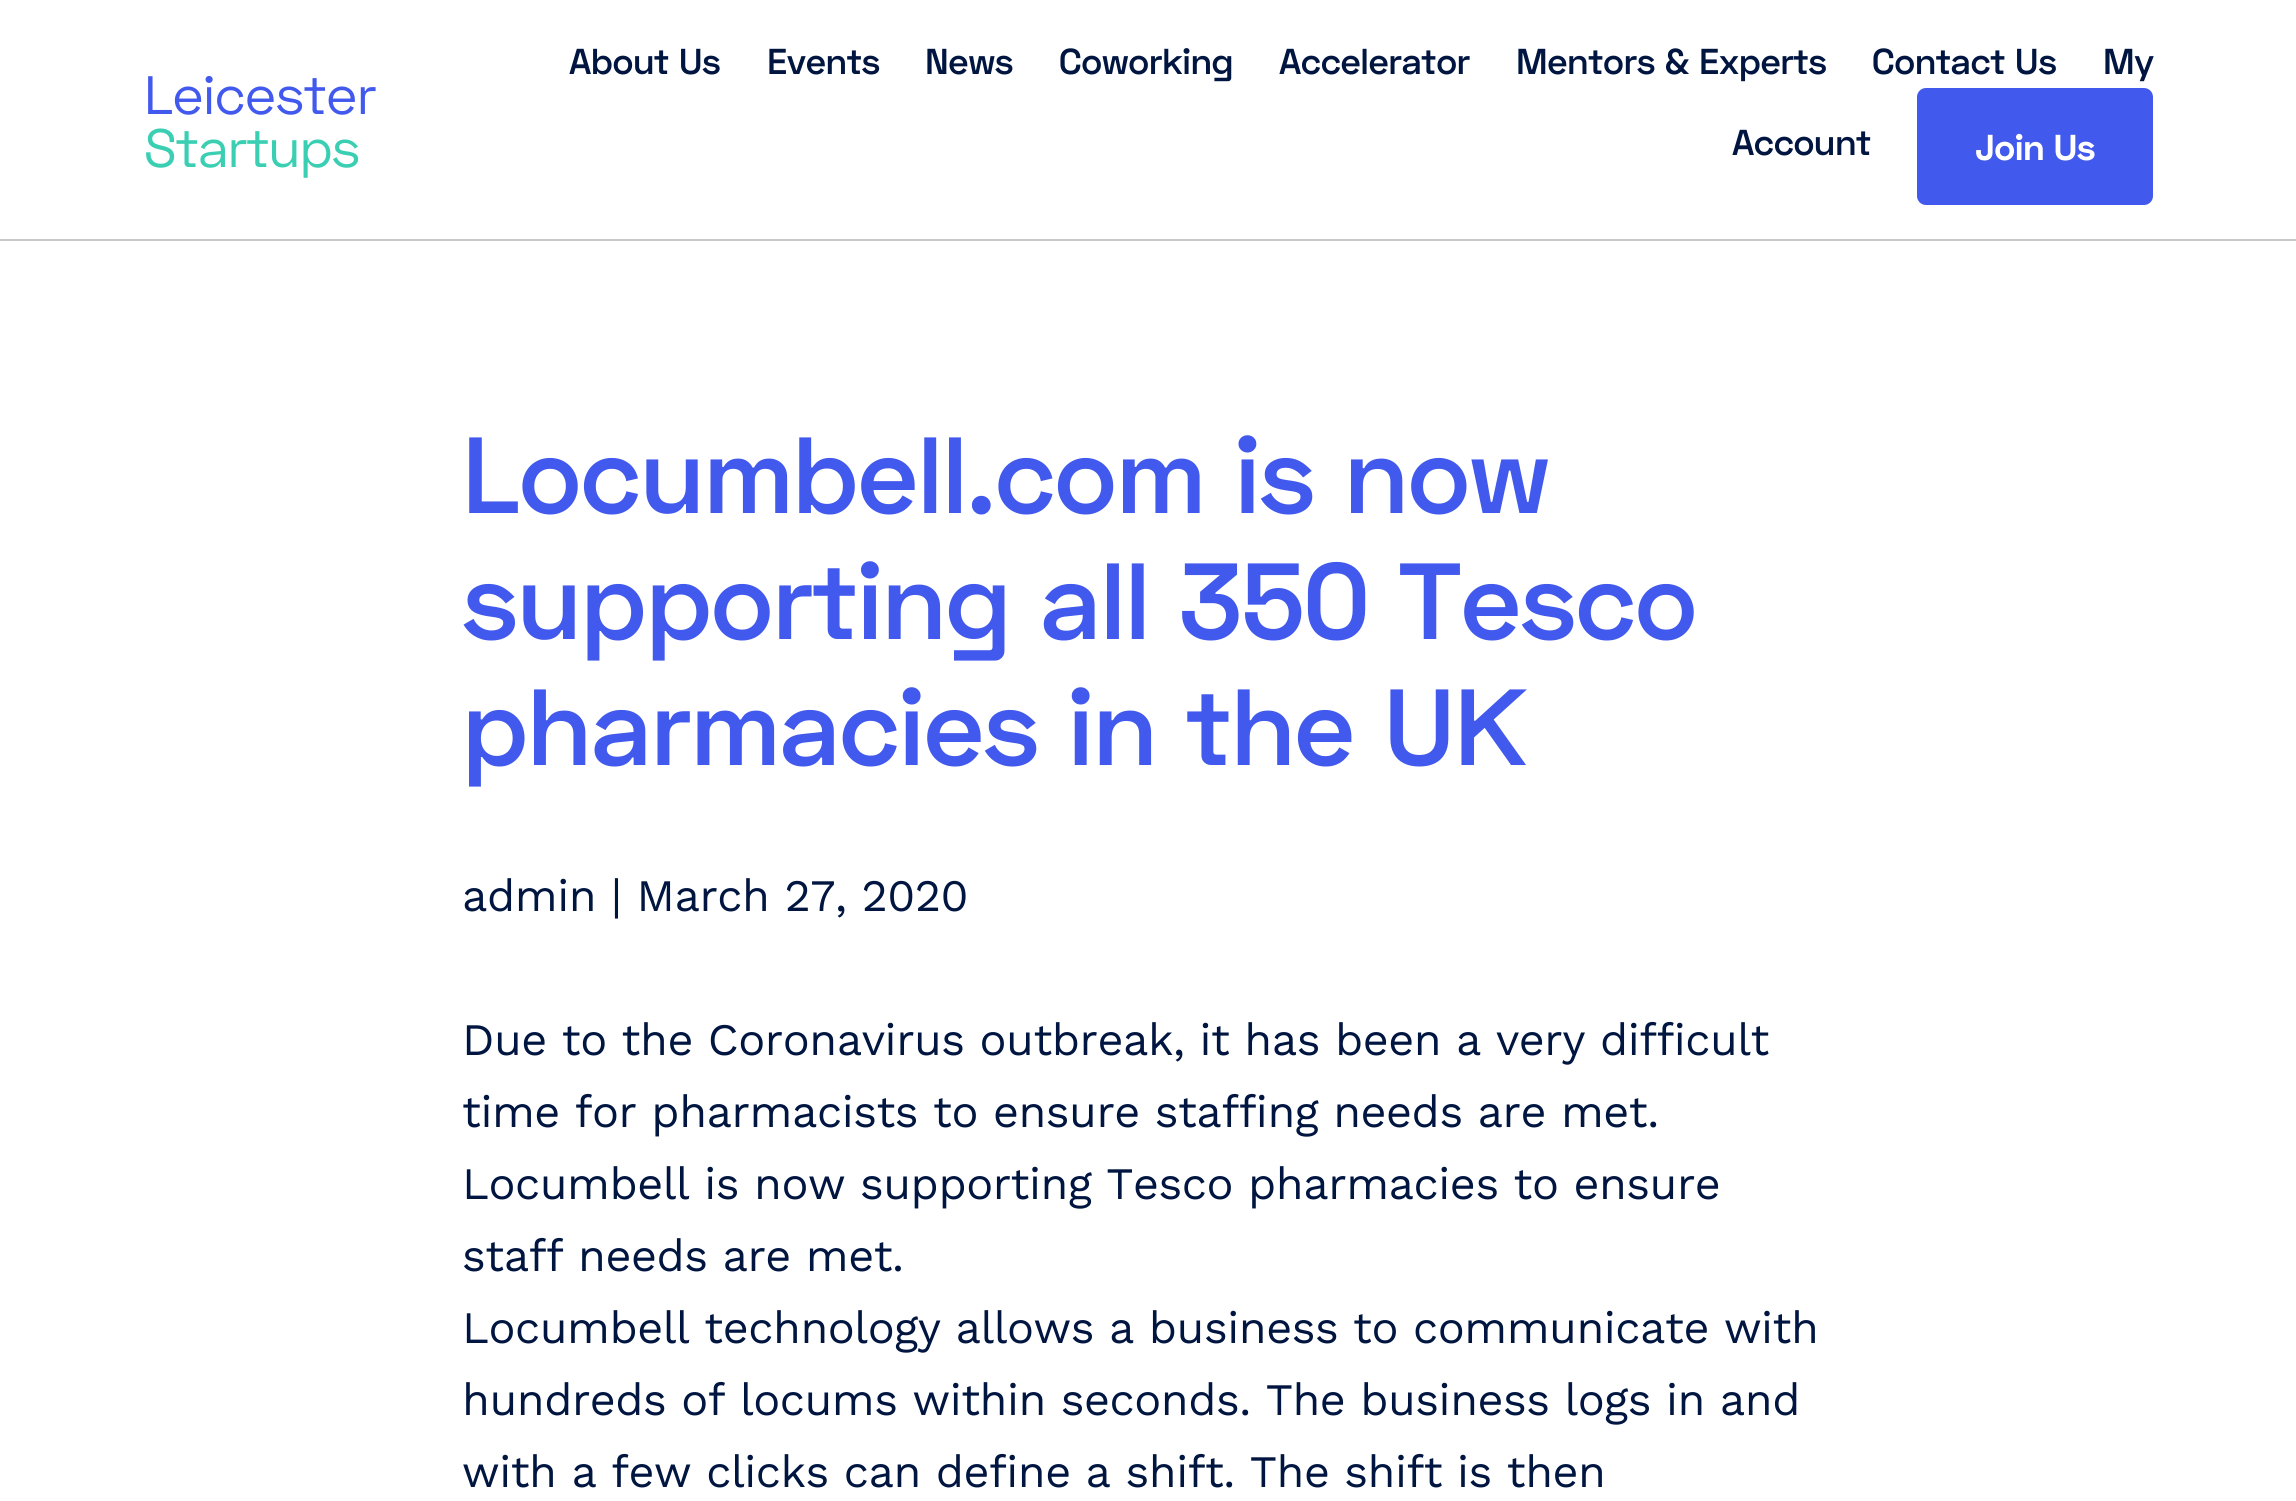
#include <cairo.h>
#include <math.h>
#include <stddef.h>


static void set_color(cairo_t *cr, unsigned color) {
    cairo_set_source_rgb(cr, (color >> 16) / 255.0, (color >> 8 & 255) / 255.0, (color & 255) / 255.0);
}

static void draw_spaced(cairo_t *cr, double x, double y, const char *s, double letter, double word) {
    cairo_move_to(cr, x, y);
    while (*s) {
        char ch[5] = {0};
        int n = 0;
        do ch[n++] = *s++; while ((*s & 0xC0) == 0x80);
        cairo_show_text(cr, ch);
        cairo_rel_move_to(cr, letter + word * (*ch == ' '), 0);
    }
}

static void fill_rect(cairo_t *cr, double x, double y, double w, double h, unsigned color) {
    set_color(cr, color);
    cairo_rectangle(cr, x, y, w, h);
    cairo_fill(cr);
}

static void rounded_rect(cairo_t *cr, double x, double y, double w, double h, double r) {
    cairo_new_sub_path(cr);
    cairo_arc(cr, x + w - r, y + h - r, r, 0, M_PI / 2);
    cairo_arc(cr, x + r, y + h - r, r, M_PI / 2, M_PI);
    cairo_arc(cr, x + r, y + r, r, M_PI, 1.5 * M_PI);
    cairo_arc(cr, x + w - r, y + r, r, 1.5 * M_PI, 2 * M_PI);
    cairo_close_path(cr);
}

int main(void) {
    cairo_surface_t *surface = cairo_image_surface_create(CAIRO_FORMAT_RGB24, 2296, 1501);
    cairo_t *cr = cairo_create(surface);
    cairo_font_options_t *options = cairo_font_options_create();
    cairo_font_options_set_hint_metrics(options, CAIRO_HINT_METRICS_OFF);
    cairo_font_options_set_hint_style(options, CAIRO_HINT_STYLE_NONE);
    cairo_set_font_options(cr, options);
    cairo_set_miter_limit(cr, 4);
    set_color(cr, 0xFFFFFF);
    cairo_paint(cr);
    fill_rect(cr, 0, 239, 2296, 2, 0xC9C9C9);
    cairo_select_font_face(cr, "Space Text", CAIRO_FONT_SLANT_NORMAL, CAIRO_FONT_WEIGHT_NORMAL);
    cairo_set_font_size(cr, 54);
    set_color(cr, 0x4259ED);
    draw_spaced(cr, 144, 114, "Leicester", -0.45, 0);
    set_color(cr, 0x3ACFB2);
    draw_spaced(cr, 144, 167, "Startups", -1.1, 0);
    cairo_select_font_face(cr, "Space Text SemiBold", CAIRO_FONT_SLANT_NORMAL, CAIRO_FONT_WEIGHT_NORMAL);
    cairo_set_font_size(cr, 36);
    set_color(cr, 0x001540);
    draw_spaced(cr, 569, 74, "About Us", -0.45, 0);
    draw_spaced(cr, 767, 74, "Events", -0.45, 0);
    draw_spaced(cr, 925, 74, "News", -0.45, 0);
    draw_spaced(cr, 1059, 74, "Coworking", -0.45, 0);
    draw_spaced(cr, 1279, 74, "Accelerator", -0.45, 0);
    draw_spaced(cr, 1516, 74, "Mentors & Experts", -0.45, 0);
    draw_spaced(cr, 1872, 74, "Contact Us", -0.45, 0);
    draw_spaced(cr, 2103, 74, "My", -0.45, 0);
    draw_spaced(cr, 1732, 155, "Account", -0.45, 0);
    set_color(cr, 0x4259ED);
    rounded_rect(cr, 1919.5, 90.5, 231, 112, 6.5);
    cairo_fill_preserve(cr);
    cairo_set_line_width(cr, 5);
    cairo_stroke(cr);
    cairo_select_font_face(cr, "Space Text", CAIRO_FONT_SLANT_NORMAL, CAIRO_FONT_WEIGHT_BOLD);
    set_color(cr, 0xFFFFFF);
    draw_spaced(cr, 1975, 160, "Join Us", -0.45, 0);
    cairo_select_font_face(cr, "Space Text SemiBold", CAIRO_FONT_SLANT_NORMAL, CAIRO_FONT_WEIGHT_NORMAL);
    cairo_set_font_size(cr, 108);
    set_color(cr, 0x4259ED);
    draw_spaced(cr, 462, 513, "Locumbell.com is now", -1.1, 0);
    draw_spaced(cr, 462, 639, "supporting all 350 Tesco", -1.1, 0);
    draw_spaced(cr, 462, 765, "pharmacies in the UK", -1.1, 0);
    cairo_select_font_face(cr, "Work Sans", CAIRO_FONT_SLANT_NORMAL, CAIRO_FONT_WEIGHT_NORMAL);
    cairo_set_font_size(cr, 45);
    set_color(cr, 0x001540);
    draw_spaced(cr, 462, 911, "admin | March 27, 2020", -0.45, 0);
    draw_spaced(cr, 462, 1055, "Due to the Coronavirus outbreak, it has been a very difficult", -0.45, 0);
    draw_spaced(cr, 462, 1127, "time for pharmacists to ensure staffing needs are met.", -0.45, 0);
    draw_spaced(cr, 462, 1199, "Locumbell is now supporting Tesco pharmacies to ensure", -0.45, 0);
    draw_spaced(cr, 462, 1271, "staff needs are met.", -0.45, 0);
    draw_spaced(cr, 462, 1343, "Locumbell technology allows a business to communicate with", -0.45, 0);
    draw_spaced(cr, 462, 1415, "hundreds of locums within seconds. The business logs in and", -0.45, 0);
    draw_spaced(cr, 462, 1487, "with a few clicks can define a shift. The shift is then", -0.45, 0);
    cairo_surface_write_to_png(surface, "output.png");
    cairo_font_options_destroy(options);
    cairo_destroy(cr);
    cairo_surface_destroy(surface);
    return 0;
}
